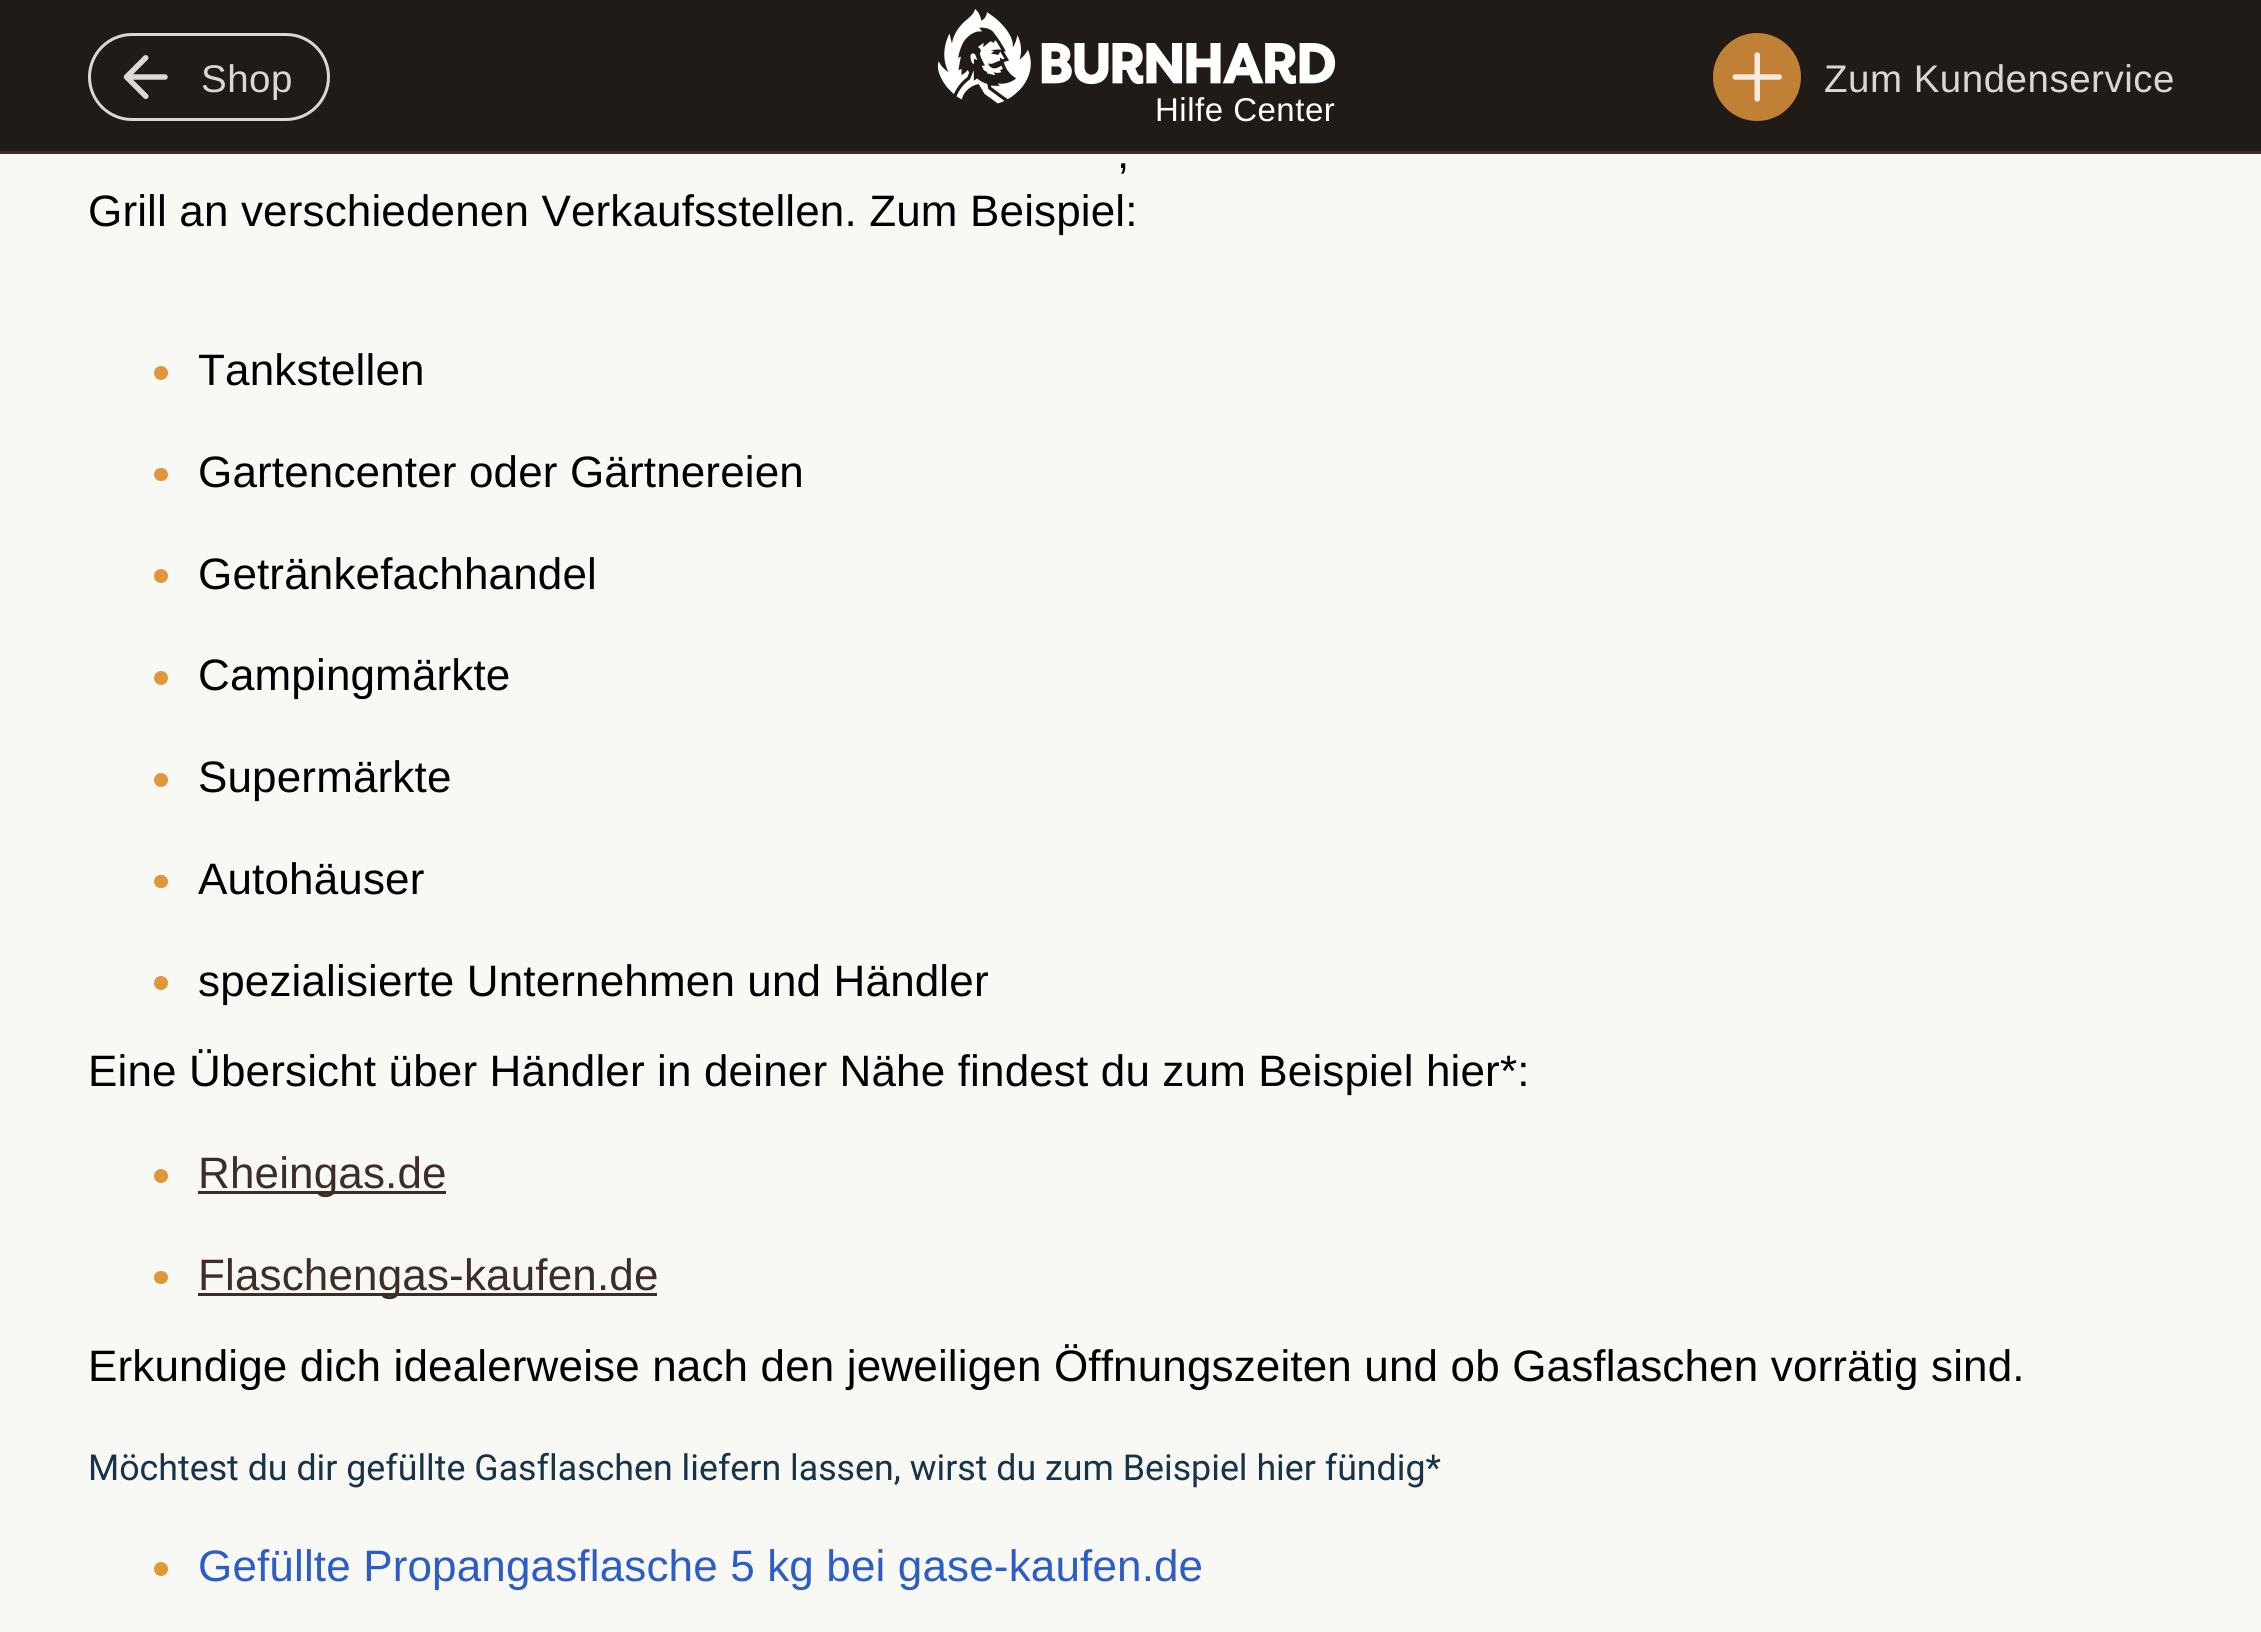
#include <cairo.h>
#include <math.h>
#include <stddef.h>


static void set_color(cairo_t *cr, unsigned color) {
    cairo_set_source_rgb(cr, (color >> 16) / 255.0, (color >> 8 & 255) / 255.0, (color & 255) / 255.0);
}

static void draw_text(cairo_t *cr, double x, double y, const char *s, const char *family, double size, int italic, int bold, unsigned color) {
    cairo_select_font_face(cr, family, italic ? CAIRO_FONT_SLANT_ITALIC : CAIRO_FONT_SLANT_NORMAL,
        bold ? CAIRO_FONT_WEIGHT_BOLD : CAIRO_FONT_WEIGHT_NORMAL);
    cairo_set_font_size(cr, size);
    set_color(cr, color);
    cairo_move_to(cr, x, y);
    cairo_show_text(cr, s);
}

static void draw_spaced(cairo_t *cr, double x, double y, const char *s, double letter, double word) {
    cairo_move_to(cr, x, y);
    while (*s) {
        char ch[5] = {0};
        int n = 0;
        do ch[n++] = *s++; while ((*s & 0xC0) == 0x80);
        cairo_show_text(cr, ch);
        cairo_rel_move_to(cr, letter + word * (*ch == ' '), 0);
    }
}

static void fill_rect(cairo_t *cr, double x, double y, double w, double h, unsigned color) {
    set_color(cr, color);
    cairo_rectangle(cr, x, y, w, h);
    cairo_fill(cr);
}

static void rounded_rect(cairo_t *cr, double x, double y, double w, double h, double r) {
    cairo_new_sub_path(cr);
    cairo_arc(cr, x + w - r, y + h - r, r, 0, M_PI / 2);
    cairo_arc(cr, x + r, y + h - r, r, M_PI / 2, M_PI);
    cairo_arc(cr, x + r, y + r, r, M_PI, 1.5 * M_PI);
    cairo_arc(cr, x + w - r, y + r, r, 1.5 * M_PI, 2 * M_PI);
    cairo_close_path(cr);
}

static void draw_image(cairo_t *cr, const char *path, double x, double y, double w, double h) {
    cairo_surface_t *image = cairo_image_surface_create_from_png(path);
    cairo_save(cr);
    cairo_set_source_surface(cr, image, x, y);
    cairo_rectangle(cr, x, y, w, h);
    cairo_fill(cr);
    cairo_restore(cr);
    cairo_surface_destroy(image);
}

int main(void) {
    cairo_surface_t *surface = cairo_image_surface_create(CAIRO_FORMAT_RGB24, 2261, 1632);
    cairo_t *cr = cairo_create(surface);
    cairo_font_options_t *options = cairo_font_options_create();
    cairo_font_options_set_hint_metrics(options, CAIRO_HINT_METRICS_OFF);
    cairo_font_options_set_hint_style(options, CAIRO_HINT_STYLE_NONE);
    cairo_set_font_options(cr, options);
    cairo_set_miter_limit(cr, 4);
    set_color(cr, 0xF8F8F4);
    cairo_paint(cr);
    fill_rect(cr, 0, 0, 2261, 151, 0x211B17);
    fill_rect(cr, 0, 151, 2261, 3, 0x3C2D28);
    rounded_rect(cr, 89.5, 34.5, 239, 85, 42.5);
    set_color(cr, 0xD9D8D8);
    cairo_set_line_width(cr, 3);
    cairo_stroke(cr);
    draw_image(cr, "assets/img1.png", 123, 55, 45, 44);
    cairo_select_font_face(cr, "Liberation Sans", CAIRO_FONT_SLANT_NORMAL, CAIRO_FONT_WEIGHT_NORMAL);
    cairo_set_font_size(cr, 38.5);
    draw_spaced(cr, 201, 92, "Shop", 0.5, 0);
    set_color(cr, 0xC08136);
    cairo_new_path(cr);
    cairo_arc(cr, 1757, 77, 44, 0, 2 * M_PI);
    cairo_fill(cr);
    draw_image(cr, "assets/img2.png", 1732, 52, 50, 50);
    set_color(cr, 0xD9D8D8);
    draw_spaced(cr, 1824, 92, "Zum Kundenservice", 0.5, 0);
    draw_image(cr, "assets/img3.png", 937, 9, 399, 95);
    cairo_set_font_size(cr, 33);
    set_color(cr, 0xFFFFFF);
    draw_spaced(cr, 1155, 121, "Hilfe Center", 0.5, 0);
    cairo_set_font_size(cr, 44);
    set_color(cr, 0x000000);
    draw_spaced(cr, 1117, 168, ",", 0.15, 0);
    draw_spaced(cr, 88, 226, "Grill an verschiedenen Verkaufsstellen. Zum Beispiel:", 0.15, 0);
    set_color(cr, 0xE1963C);
    cairo_new_path(cr);
    cairo_arc(cr, 161, 373, 7, 0, 2 * M_PI);
    cairo_fill(cr);
    set_color(cr, 0x000000);
    draw_spaced(cr, 198, 385, "Tankstellen", 0.15, 0);
    set_color(cr, 0xE1963C);
    rounded_rect(cr, 154, 468, 14, 13, 6.5);
    cairo_fill(cr);
    set_color(cr, 0x000000);
    draw_spaced(cr, 198, 487, "Gartencenter oder Gärtnereien", 0.15, 0);
    set_color(cr, 0xE1963C);
    cairo_new_path(cr);
    cairo_arc(cr, 161, 576, 7, 0, 2 * M_PI);
    cairo_fill(cr);
    set_color(cr, 0x000000);
    draw_spaced(cr, 198, 589, "Getränkefachhandel", 0.15, 0);
    set_color(cr, 0xE1963C);
    cairo_new_path(cr);
    cairo_arc(cr, 161, 678, 7, 0, 2 * M_PI);
    cairo_fill(cr);
    set_color(cr, 0x000000);
    draw_spaced(cr, 198, 690, "Campingmärkte", 0.15, 0);
    set_color(cr, 0xE1963C);
    cairo_new_path(cr);
    cairo_arc(cr, 161, 780, 7, 0, 2 * M_PI);
    cairo_fill(cr);
    set_color(cr, 0x000000);
    draw_spaced(cr, 198, 792, "Supermärkte", 0.15, 0);
    set_color(cr, 0xE1963C);
    rounded_rect(cr, 154, 875, 14, 13, 6.5);
    cairo_fill(cr);
    set_color(cr, 0x000000);
    draw_spaced(cr, 198, 894, "Autohäuser", 0.15, 0);
    set_color(cr, 0xE1963C);
    cairo_new_path(cr);
    cairo_arc(cr, 161, 983, 7, 0, 2 * M_PI);
    cairo_fill(cr);
    set_color(cr, 0x000000);
    draw_spaced(cr, 198, 996, "spezialisierte Unternehmen und Händler", 0.15, 0);
    draw_spaced(cr, 88, 1086, "Eine Übersicht über Händler in deiner Nähe findest du zum Beispiel hier*:", 0.15, 0);
    set_color(cr, 0xE1963C);
    cairo_new_path(cr);
    cairo_arc(cr, 161, 1176, 7, 0, 2 * M_PI);
    cairo_fill(cr);
    fill_rect(cr, 198, 1191, 248, 3, 0x3C2D28);
    draw_spaced(cr, 198, 1188, "Rheingas.de", 0.15, 0);
    set_color(cr, 0xE1963C);
    rounded_rect(cr, 154, 1271, 14, 13, 6.5);
    cairo_fill(cr);
    fill_rect(cr, 198, 1293, 459, 3, 0x3C2D28);
    draw_spaced(cr, 198, 1290, "Flaschengas-kaufen.de", 0.15, 0);
    set_color(cr, 0x000000);
    draw_spaced(cr, 88, 1381, "Erkundige dich idealerweise nach den jeweiligen Öffnungszeiten und ob Gasflaschen vorrätig sind.", 0.15, 0);
    draw_text(cr, 88, 1480, "Möchtest du dir gefüllte Gasflaschen liefern lassen, wirst du zum Beispiel hier fündig*", "Roboto", 35.75, 0, 0, 0x183247);
    set_color(cr, 0xE1963C);
    cairo_new_path(cr);
    cairo_arc(cr, 161, 1569, 7, 0, 2 * M_PI);
    cairo_fill(cr);
    cairo_select_font_face(cr, "Liberation Sans", CAIRO_FONT_SLANT_NORMAL, CAIRO_FONT_WEIGHT_NORMAL);
    cairo_set_font_size(cr, 44);
    set_color(cr, 0x2C5CC5);
    draw_spaced(cr, 198, 1581, "Gefüllte Propangasflasche 5 kg bei gase-kaufen.de", 0.15, 0);
    cairo_surface_write_to_png(surface, "output.png");
    cairo_font_options_destroy(options);
    cairo_destroy(cr);
    cairo_surface_destroy(surface);
    return 0;
}
